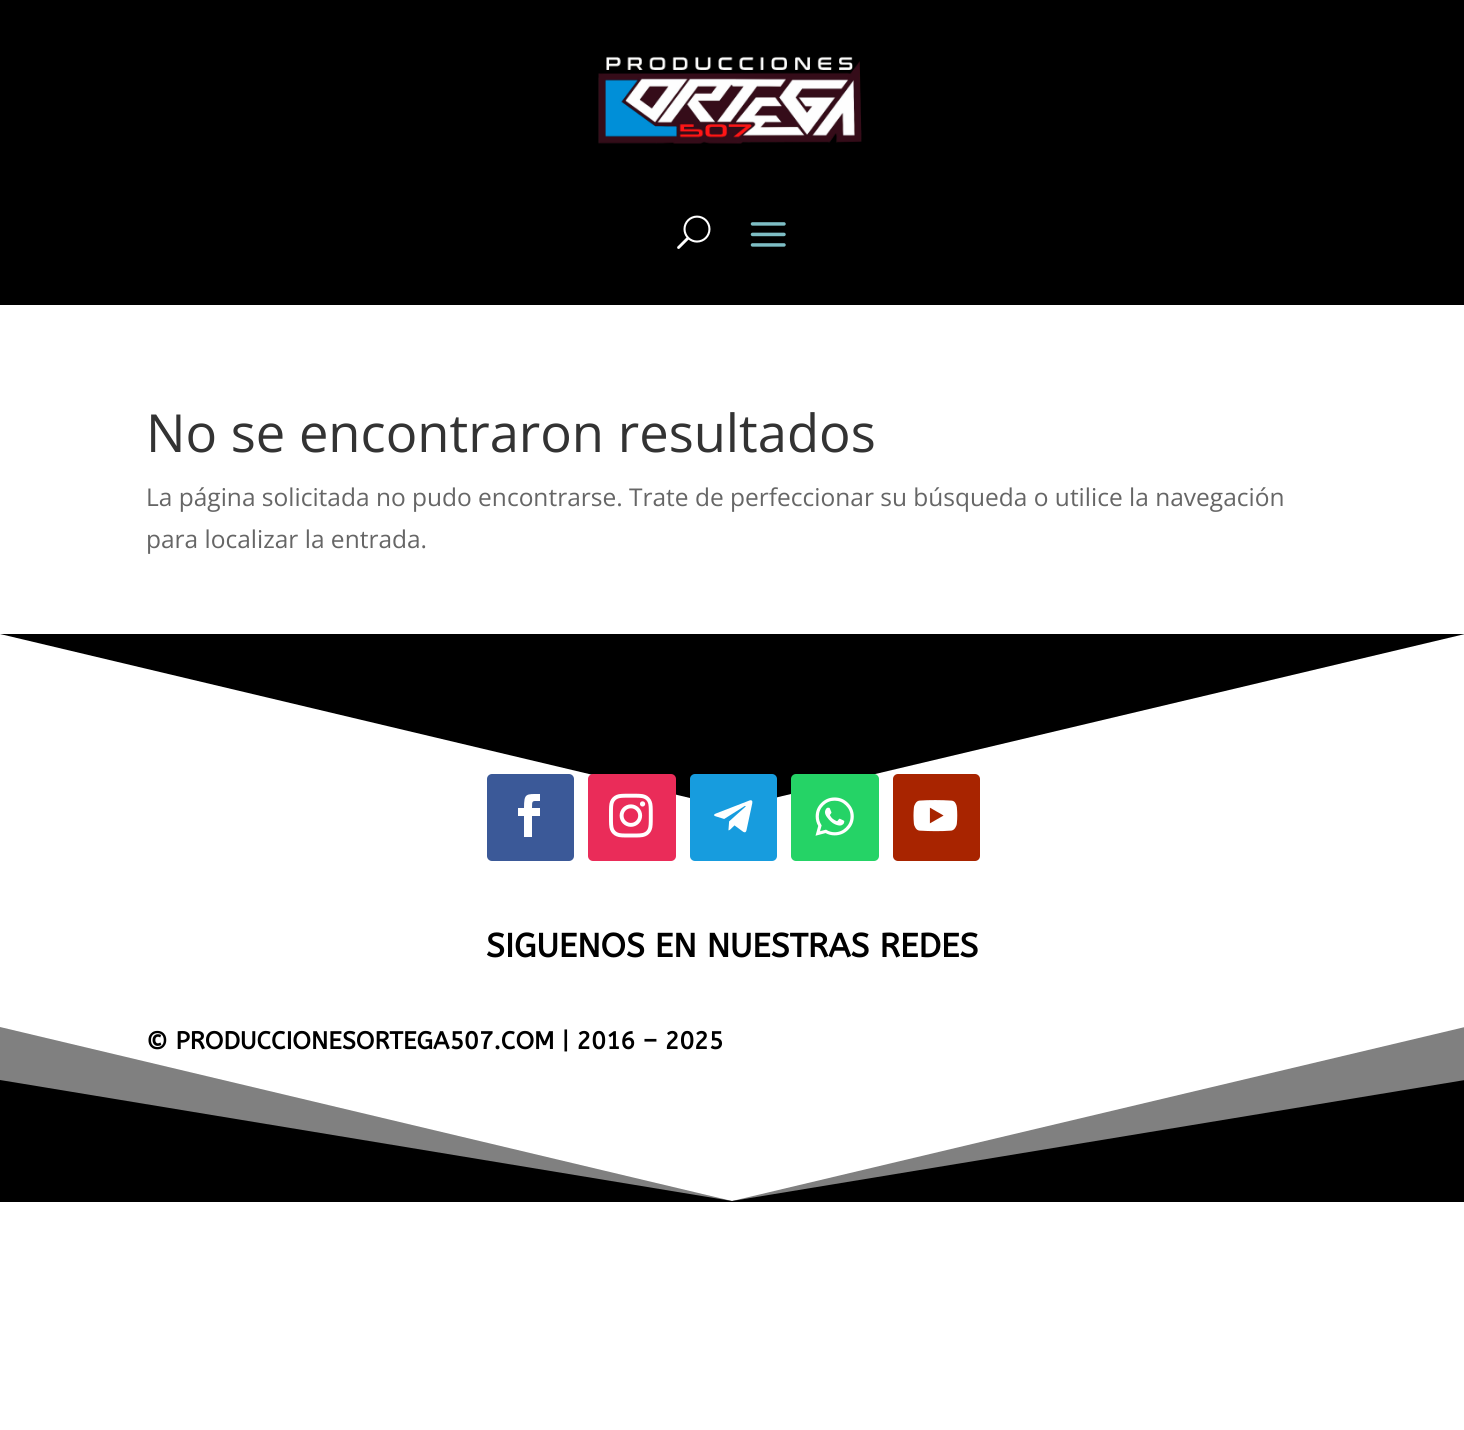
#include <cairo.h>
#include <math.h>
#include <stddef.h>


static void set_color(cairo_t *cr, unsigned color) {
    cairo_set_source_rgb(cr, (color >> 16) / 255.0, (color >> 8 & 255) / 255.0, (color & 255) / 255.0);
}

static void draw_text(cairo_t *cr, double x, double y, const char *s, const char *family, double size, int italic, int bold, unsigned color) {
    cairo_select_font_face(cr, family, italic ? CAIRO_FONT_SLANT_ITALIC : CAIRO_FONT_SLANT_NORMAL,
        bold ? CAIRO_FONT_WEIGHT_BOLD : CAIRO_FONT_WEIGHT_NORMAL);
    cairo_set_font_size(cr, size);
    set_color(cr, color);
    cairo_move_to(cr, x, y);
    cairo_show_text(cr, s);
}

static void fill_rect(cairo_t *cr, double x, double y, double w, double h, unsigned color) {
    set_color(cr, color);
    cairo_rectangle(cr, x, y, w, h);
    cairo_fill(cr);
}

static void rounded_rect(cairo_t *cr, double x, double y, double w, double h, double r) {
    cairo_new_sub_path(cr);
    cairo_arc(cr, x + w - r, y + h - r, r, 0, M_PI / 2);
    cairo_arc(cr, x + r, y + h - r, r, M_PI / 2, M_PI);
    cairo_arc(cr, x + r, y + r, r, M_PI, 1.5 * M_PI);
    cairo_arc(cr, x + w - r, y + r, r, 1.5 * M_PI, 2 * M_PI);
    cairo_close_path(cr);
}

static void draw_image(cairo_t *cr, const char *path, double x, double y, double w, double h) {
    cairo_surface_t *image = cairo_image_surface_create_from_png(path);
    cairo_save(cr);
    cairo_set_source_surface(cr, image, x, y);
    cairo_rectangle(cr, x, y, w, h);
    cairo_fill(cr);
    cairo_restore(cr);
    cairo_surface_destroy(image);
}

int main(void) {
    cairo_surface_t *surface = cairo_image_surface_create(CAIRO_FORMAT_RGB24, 1464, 1430);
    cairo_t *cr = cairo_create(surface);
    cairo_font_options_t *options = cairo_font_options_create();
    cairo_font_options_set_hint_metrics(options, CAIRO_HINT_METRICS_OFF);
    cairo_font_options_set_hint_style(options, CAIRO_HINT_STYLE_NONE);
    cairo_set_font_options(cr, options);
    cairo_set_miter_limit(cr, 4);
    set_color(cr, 0xFFFFFF);
    cairo_paint(cr);
    fill_rect(cr, 0, 0, 1464, 305, 0x000000);
    draw_image(cr, "assets/img1.png", 598, 56, 264, 88);
    draw_image(cr, "assets/img2.png", 677, 215, 34, 34);
    draw_image(cr, "assets/img3.png", 750, 222, 36, 25);
    draw_text(cr, 146, 452, "No se encontraron resultados", "Open Sans", 52.5, 0, 0, 0x333333);
    draw_text(cr, 146, 506, "La página solicitada no pudo encontrarse. Trate de perfeccionar su búsqueda o utilice la navegación", "Open Sans", 24.5, 0, 0, 0x666666);
    draw_text(cr, 146, 548, "para localizar la entrada.", "Open Sans", 24.5, 0, 0, 0x666666);
    set_color(cr, 0x000000);
    cairo_new_path(cr);
    cairo_move_to(cr, 732, 808);
    cairo_line_to(cr, 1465, 634);
    cairo_line_to(cr, 0, 634);
    cairo_close_path(cr);
    cairo_fill(cr);
    set_color(cr, 0x3B5998);
    rounded_rect(cr, 487, 774, 87, 87, 5);
    cairo_fill(cr);
    set_color(cr, 0xFFFFFF);
    cairo_new_path(cr);
    cairo_move_to(cr, 524, 837);
    cairo_line_to(cr, 532, 837);
    cairo_line_to(cr, 532, 816);
    cairo_line_to(cr, 540, 816);
    cairo_line_to(cr, 540, 808);
    cairo_line_to(cr, 532, 808);
    cairo_curve_to(cr, 532, 800, 532, 801, 540, 801);
    cairo_line_to(cr, 540, 794);
    cairo_curve_to(cr, 526, 794, 524, 793, 524, 808);
    cairo_line_to(cr, 518, 808);
    cairo_line_to(cr, 518, 816);
    cairo_line_to(cr, 524, 816);
    cairo_close_path(cr);
    cairo_fill(cr);
    set_color(cr, 0xEA2C59);
    rounded_rect(cr, 588, 774, 88, 87, 5);
    cairo_fill(cr);
    draw_image(cr, "assets/img4.png", 609, 793, 44, 45);
    set_color(cr, 0x179CDE);
    rounded_rect(cr, 690, 774, 87, 87, 5);
    cairo_fill(cr);
    draw_image(cr, "assets/img5.png", 714, 800, 39, 33);
    set_color(cr, 0x25D366);
    rounded_rect(cr, 791, 774, 88, 87, 5);
    cairo_fill(cr);
    draw_image(cr, "assets/img6.png", 815, 797, 39, 39);
    set_color(cr, 0xA82400);
    rounded_rect(cr, 893, 774, 87, 87, 5);
    cairo_fill(cr);
    draw_image(cr, "assets/img7.png", 913, 800, 45, 32);
    draw_text(cr, 486, 957, "SIGUENOS EN NUESTRAS REDES", "ABeeZee", 33.25, 0, 1, 0x000000);
    set_color(cr, 0x808080);
    cairo_new_path(cr);
    cairo_move_to(cr, 732, 1201);
    cairo_line_to(cr, 0, 1027);
    cairo_line_to(cr, 0, 1202);
    cairo_line_to(cr, 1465, 1202);
    cairo_line_to(cr, 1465, 1027);
    cairo_close_path(cr);
    cairo_fill(cr);
    draw_text(cr, 146, 1049, "© PRODUCCIONESORTEGA507.COM | 2016 – 2025", "ABeeZee", 24.5, 0, 1, 0x000000);
    cairo_new_path(cr);
    cairo_move_to(cr, 732, 1201);
    cairo_line_to(cr, 0, 1080);
    cairo_line_to(cr, 0, 1202);
    cairo_line_to(cr, 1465, 1202);
    cairo_line_to(cr, 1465, 1080);
    cairo_close_path(cr);
    cairo_fill(cr);
    cairo_surface_write_to_png(surface, "output.png");
    cairo_font_options_destroy(options);
    cairo_destroy(cr);
    cairo_surface_destroy(surface);
    return 0;
}
